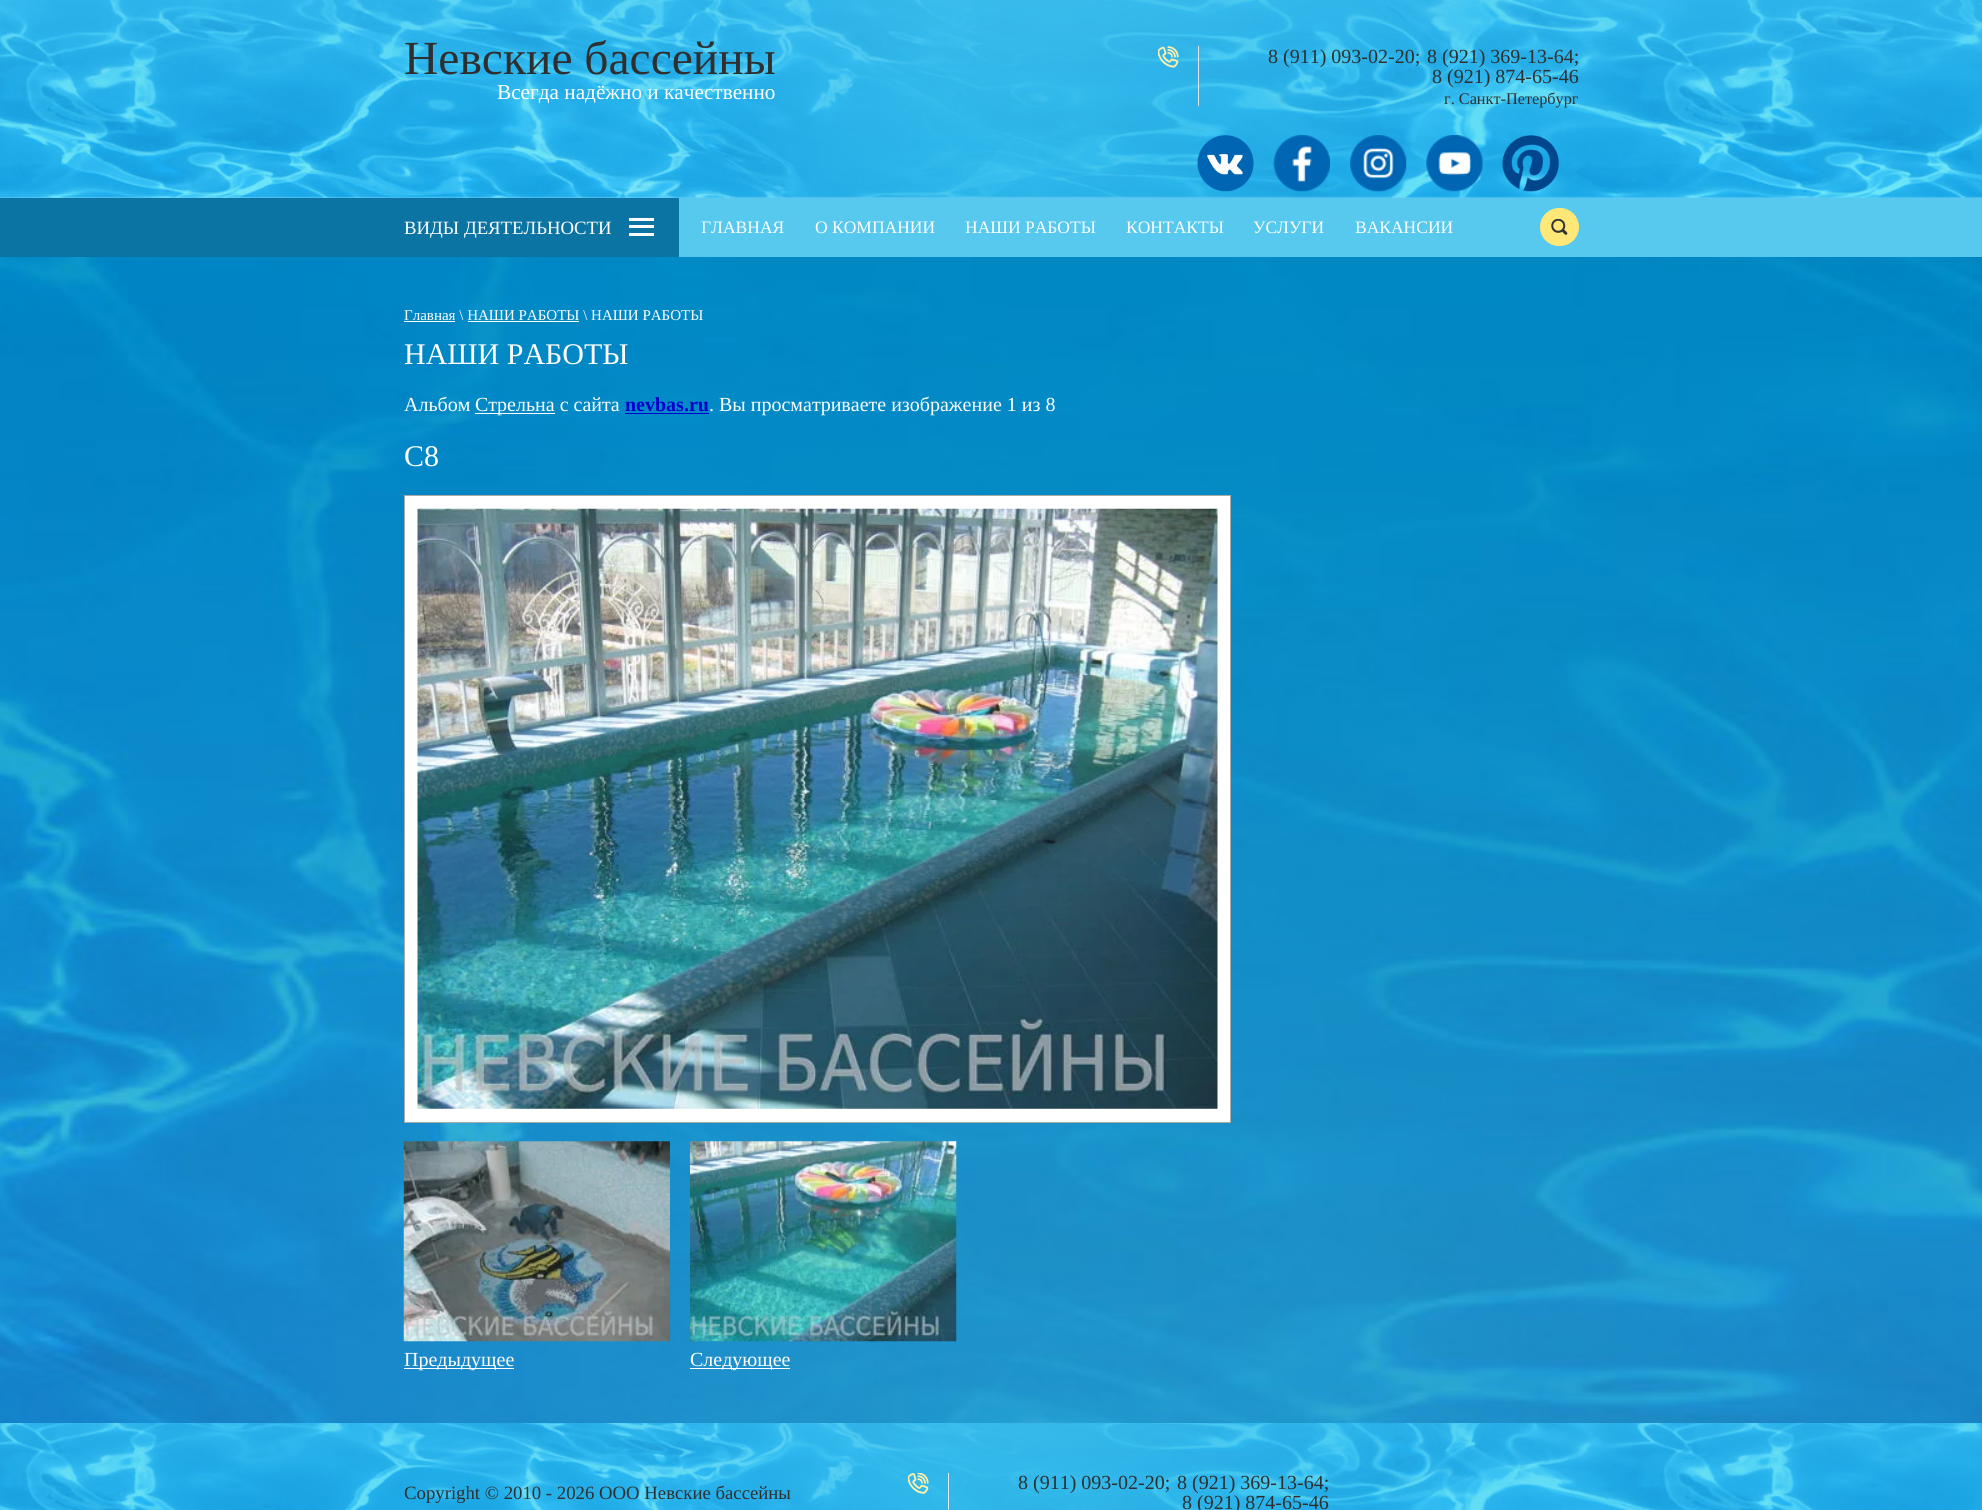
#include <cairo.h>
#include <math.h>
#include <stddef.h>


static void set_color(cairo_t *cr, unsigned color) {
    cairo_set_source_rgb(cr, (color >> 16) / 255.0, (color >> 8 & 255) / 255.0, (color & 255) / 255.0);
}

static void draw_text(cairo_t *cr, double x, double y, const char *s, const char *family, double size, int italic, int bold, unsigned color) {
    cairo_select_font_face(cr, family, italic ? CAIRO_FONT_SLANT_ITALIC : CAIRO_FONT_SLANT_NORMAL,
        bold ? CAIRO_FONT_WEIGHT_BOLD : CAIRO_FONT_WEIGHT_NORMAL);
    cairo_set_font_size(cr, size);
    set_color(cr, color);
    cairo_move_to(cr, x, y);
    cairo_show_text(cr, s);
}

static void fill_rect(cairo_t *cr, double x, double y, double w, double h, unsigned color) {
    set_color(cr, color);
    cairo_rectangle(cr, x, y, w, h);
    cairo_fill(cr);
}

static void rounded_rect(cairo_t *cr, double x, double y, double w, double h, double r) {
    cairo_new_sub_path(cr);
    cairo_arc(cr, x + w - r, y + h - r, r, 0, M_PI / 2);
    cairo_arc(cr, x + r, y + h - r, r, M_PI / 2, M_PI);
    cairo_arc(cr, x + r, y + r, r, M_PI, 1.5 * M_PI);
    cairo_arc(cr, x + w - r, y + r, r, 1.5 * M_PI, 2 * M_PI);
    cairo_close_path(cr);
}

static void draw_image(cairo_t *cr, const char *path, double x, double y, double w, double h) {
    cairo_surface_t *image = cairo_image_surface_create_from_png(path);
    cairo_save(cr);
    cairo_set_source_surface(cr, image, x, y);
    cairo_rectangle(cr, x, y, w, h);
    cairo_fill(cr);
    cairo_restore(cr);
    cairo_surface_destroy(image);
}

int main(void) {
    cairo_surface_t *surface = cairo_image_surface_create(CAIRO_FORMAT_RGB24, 1982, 1510);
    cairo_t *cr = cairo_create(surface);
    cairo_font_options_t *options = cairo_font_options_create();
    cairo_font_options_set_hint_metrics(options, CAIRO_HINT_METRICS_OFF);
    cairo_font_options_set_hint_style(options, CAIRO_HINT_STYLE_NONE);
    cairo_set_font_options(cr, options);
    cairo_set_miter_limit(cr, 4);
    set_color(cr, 0xFFFFFF);
    cairo_paint(cr);
    fill_rect(cr, 0, 197, 1982, 1, 0x65CDF4);
    draw_image(cr, "assets/img1.png", 0, 0, 1982, 198);
    draw_text(cr, 404, 74, "Невские бассейны", "Liberation Serif", 47.5, 0, 0, 0x2F2F2F);
    draw_text(cr, 497, 99, "Всегда надёжно и качественно", "Liberation Serif", 21.25, 0, 0, 0xFFFFFF);
    fill_rect(cr, 1198, 46, 1, 60, 0xE5E5E5);
    draw_image(cr, "assets/img2.png", 1158, 46, 21, 22);
    draw_text(cr, 1268, 63, "8 (911) 093-02-20;", "Liberation Serif", 20, 0, 0, 0x2F2F2F);
    draw_text(cr, 1427, 63, "8 (921) 369-13-64;", "Liberation Serif", 20, 0, 0, 0x2F2F2F);
    draw_text(cr, 1432, 83, "8 (921) 874-65-46", "Liberation Serif", 20, 0, 0, 0x2F2F2F);
    draw_text(cr, 1444, 104, "г. Санкт-Петербург", "Liberation Serif", 16.25, 0, 0, 0x2F2F2F);
    draw_image(cr, "assets/img3.png", 1197, 135, 57, 57);
    draw_image(cr, "assets/img4.png", 1273, 135, 57, 57);
    draw_image(cr, "assets/img5.png", 1350, 135, 57, 57);
    draw_image(cr, "assets/img6.png", 1426, 135, 57, 57);
    draw_image(cr, "assets/img7.png", 1502, 135, 57, 57);
    fill_rect(cr, 679, 198, 1303, 59, 0x57C9EE);
    fill_rect(cr, 0, 198, 679, 59, 0x0C74A2);
    draw_text(cr, 404, 234, "ВИДЫ ДЕЯТЕЛЬНОСТИ", "Liberation Serif", 18.75, 0, 0, 0xFFFFFF);
    fill_rect(cr, 629, 233, 25, 3, 0xFFFFFF);
    fill_rect(cr, 629, 225, 25, 3, 0xFFFFFF);
    fill_rect(cr, 629, 218, 25, 3, 0xFFFFFF);
    draw_text(cr, 701, 233, "ГЛАВНАЯ", "Liberation Serif", 17.5, 0, 0, 0xFFFFFF);
    draw_text(cr, 815, 233, "О КОМПАНИИ", "Liberation Serif", 17.5, 0, 0, 0xFFFFFF);
    draw_text(cr, 965, 233, "НАШИ РАБОТЫ", "Liberation Serif", 17.5, 0, 0, 0xFFFFFF);
    draw_text(cr, 1126, 233, "КОНТАКТЫ", "Liberation Serif", 17.5, 0, 0, 0xFFFFFF);
    draw_text(cr, 1253, 233, "УСЛУГИ", "Liberation Serif", 17.5, 0, 0, 0xFFFFFF);
    draw_text(cr, 1355, 233, "ВАКАНСИИ", "Liberation Serif", 17.5, 0, 0, 0xFFFFFF);
    set_color(cr, 0xFFE877);
    rounded_rect(cr, 1540, 208, 39, 38, 19);
    cairo_fill(cr);
    draw_image(cr, "assets/img8.png", 1551, 219, 17, 16);
    draw_image(cr, "assets/img9.png", 0, 257, 1982, 1166);
    draw_text(cr, 404, 320, "Главная \\ НАШИ РАБОТЫ \\ НАШИ РАБОТЫ", "Liberation Serif", 15, 0, 0, 0xFFFFFF);
    fill_rect(cr, 404, 321, 51, 1, 0xFFFFFF);
    fill_rect(cr, 468, 321, 111, 1, 0xFFFFFF);
    draw_text(cr, 404, 364, "НАШИ РАБОТЫ", "Liberation Serif", 30, 0, 0, 0xFFFFFF);
    draw_text(cr, 404, 411, "Альбом", "Liberation Serif", 20, 0, 0, 0xFFFFFF);
    fill_rect(cr, 475, 413, 80, 1, 0xFFFFFF);
    draw_text(cr, 475, 411, "Стрельна с сайта", "Liberation Serif", 20, 0, 0, 0xFFFFFF);
    draw_text(cr, 625, 411, "nevbas.ru", "Liberation Serif", 20, 0, 1, 0x0000CC);
    fill_rect(cr, 625, 413, 84, 1, 0x0000CC);
    draw_text(cr, 709, 411, ". Вы просматриваете изображение 1 из 8", "Liberation Serif", 20, 0, 0, 0xFFFFFF);
    draw_text(cr, 404, 466, "С8", "Liberation Serif", 30, 0, 0, 0xFFFFFF);
    cairo_rectangle(cr, 404.5, 495.5, 826, 627);
    cairo_fill_preserve(cr);
    set_color(cr, 0xAAAAAA);
    cairo_set_line_width(cr, 1);
    cairo_stroke(cr);
    draw_image(cr, "assets/img10.png", 417, 508, 801, 601);
    draw_image(cr, "assets/img11.png", 403, 1141, 267, 201);
    fill_rect(cr, 404, 1368, 110, 1, 0xFFFFFF);
    draw_text(cr, 404, 1366, "Предыдущее", "Liberation Serif", 20, 0, 0, 0xFFFFFF);
    draw_image(cr, "assets/img12.png", 690, 1141, 267, 201);
    fill_rect(cr, 690, 1368, 100, 1, 0xFFFFFF);
    draw_text(cr, 690, 1366, "Следующее", "Liberation Serif", 20, 0, 0, 0xFFFFFF);
    draw_image(cr, "assets/img13.png", 0, 1423, 1982, 87);
    draw_text(cr, 404, 1499, "Copyright © 2010 - 2026 ООО Невские бассейны", "Liberation Serif", 18.75, 0, 0, 0x2F2F2F);
    fill_rect(cr, 948, 1473, 1, 37, 0xE5E5E5);
    draw_image(cr, "assets/img14.png", 908, 1473, 21, 21);
    draw_text(cr, 1018, 1489, "8 (911) 093-02-20;", "Liberation Serif", 20, 0, 0, 0x2F2F2F);
    draw_text(cr, 1177, 1489, "8 (921) 369-13-64;", "Liberation Serif", 20, 0, 0, 0x2F2F2F);
    draw_text(cr, 1182, 1509, "8 (921) 874-65-46", "Liberation Serif", 20, 0, 0, 0x2F2F2F);
    cairo_surface_write_to_png(surface, "output.png");
    cairo_font_options_destroy(options);
    cairo_destroy(cr);
    cairo_surface_destroy(surface);
    return 0;
}
